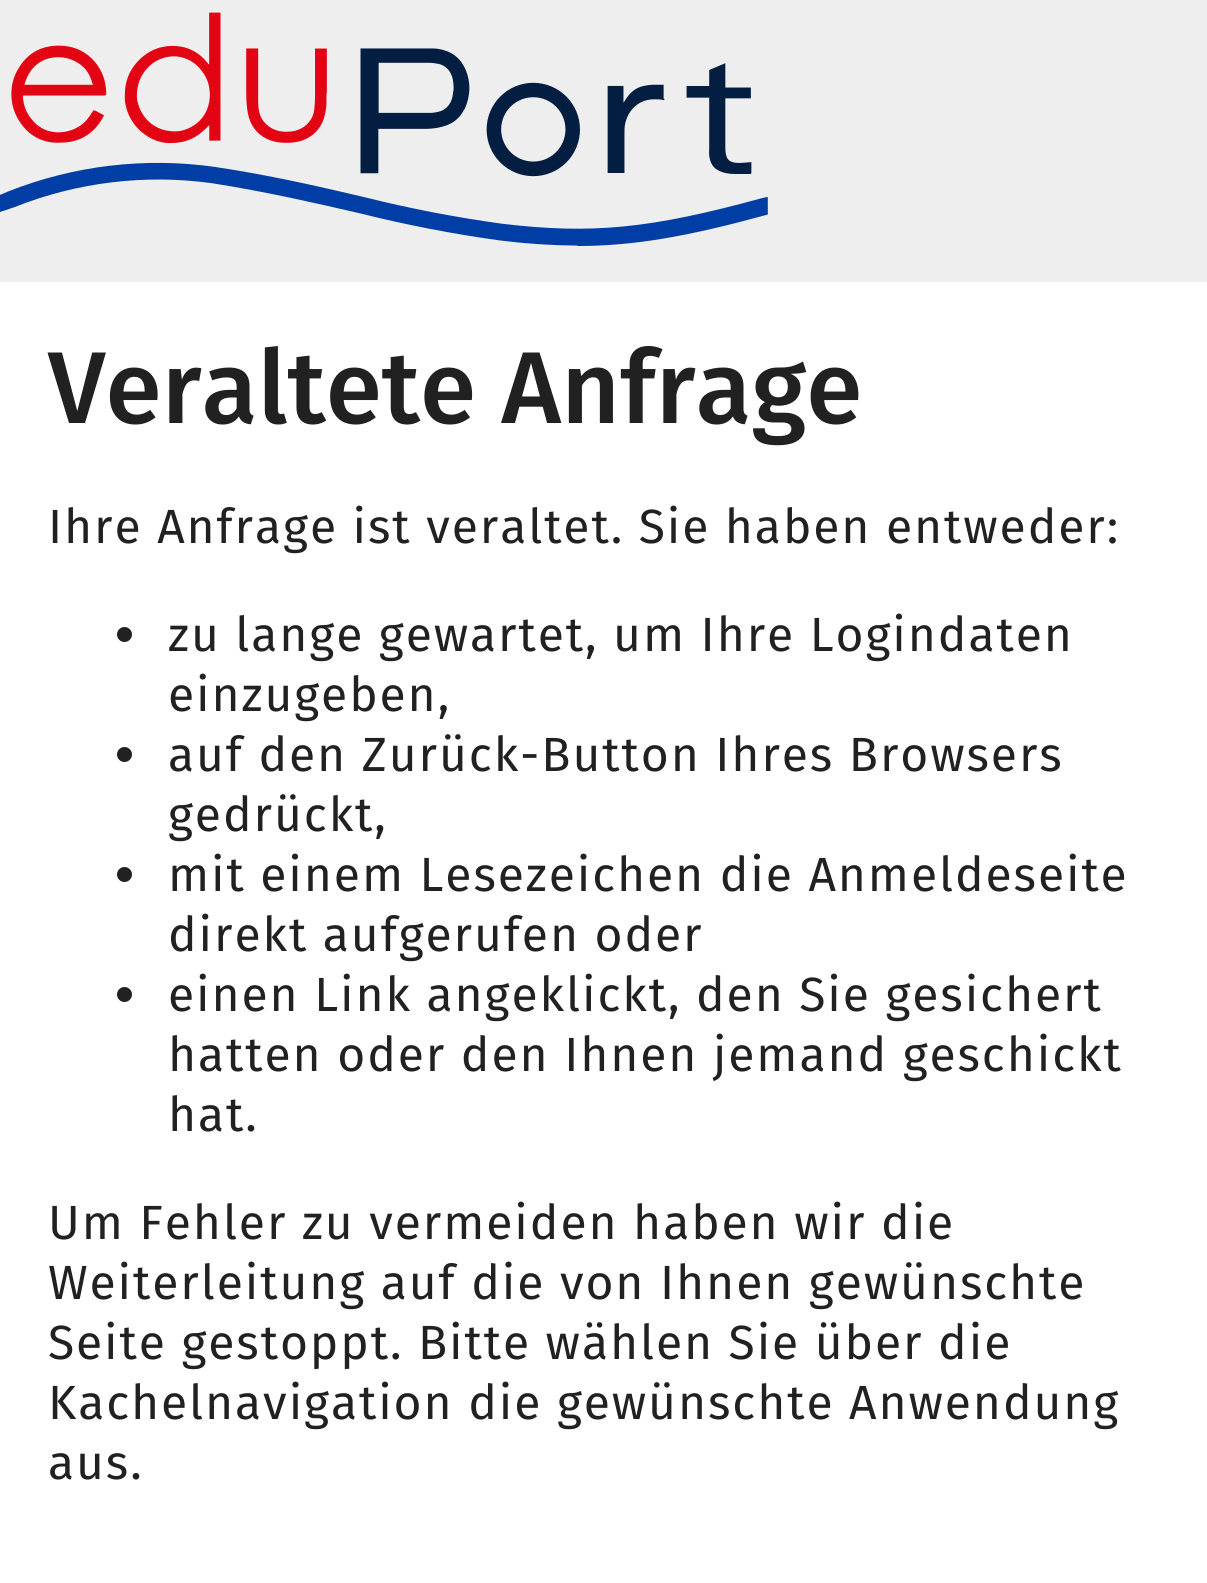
#include <cairo.h>
#include <math.h>
#include <stddef.h>


static void set_color(cairo_t *cr, unsigned color) {
    cairo_set_source_rgb(cr, (color >> 16) / 255.0, (color >> 8 & 255) / 255.0, (color & 255) / 255.0);
}

static void draw_text(cairo_t *cr, double x, double y, const char *s, const char *family, double size, int italic, int bold, unsigned color) {
    cairo_select_font_face(cr, family, italic ? CAIRO_FONT_SLANT_ITALIC : CAIRO_FONT_SLANT_NORMAL,
        bold ? CAIRO_FONT_WEIGHT_BOLD : CAIRO_FONT_WEIGHT_NORMAL);
    cairo_set_font_size(cr, size);
    set_color(cr, color);
    cairo_move_to(cr, x, y);
    cairo_show_text(cr, s);
}

static void draw_spaced(cairo_t *cr, double x, double y, const char *s, double letter, double word) {
    cairo_move_to(cr, x, y);
    while (*s) {
        char ch[5] = {0};
        int n = 0;
        do ch[n++] = *s++; while ((*s & 0xC0) == 0x80);
        cairo_show_text(cr, ch);
        cairo_rel_move_to(cr, letter + word * (*ch == ' '), 0);
    }
}

static void fill_rect(cairo_t *cr, double x, double y, double w, double h, unsigned color) {
    set_color(cr, color);
    cairo_rectangle(cr, x, y, w, h);
    cairo_fill(cr);
}

static void draw_image(cairo_t *cr, const char *path, double x, double y, double w, double h) {
    cairo_surface_t *image = cairo_image_surface_create_from_png(path);
    cairo_save(cr);
    cairo_set_source_surface(cr, image, x, y);
    cairo_rectangle(cr, x, y, w, h);
    cairo_fill(cr);
    cairo_restore(cr);
    cairo_surface_destroy(image);
}

int main(void) {
    cairo_surface_t *surface = cairo_image_surface_create(CAIRO_FORMAT_RGB24, 1207, 1583);
    cairo_t *cr = cairo_create(surface);
    cairo_font_options_t *options = cairo_font_options_create();
    cairo_font_options_set_hint_metrics(options, CAIRO_HINT_METRICS_OFF);
    cairo_font_options_set_hint_style(options, CAIRO_HINT_STYLE_NONE);
    cairo_set_font_options(cr, options);
    cairo_set_miter_limit(cr, 4);
    set_color(cr, 0xFFFFFF);
    cairo_paint(cr);
    fill_rect(cr, 0, 0, 1207, 282, 0xEEEEEE);
    draw_image(cr, "assets/img1.png", 0, 12, 768, 234);
    draw_text(cr, 48, 423, "Veraltete Anfrage", "Fira Sans Medium", 102, 0, 0, 0x212121);
    cairo_select_font_face(cr, "Fira Sans", CAIRO_FONT_SLANT_NORMAL, CAIRO_FONT_WEIGHT_NORMAL);
    cairo_set_font_size(cr, 48);
    draw_spaced(cr, 48, 543, "Ihre Anfrage ist veraltet. Sie haben entweder:", 1.9, 0);
    cairo_new_path(cr);
    cairo_arc(cr, 124.5, 634.5, 7.5, 0, 2 * M_PI);
    cairo_fill(cr);
    draw_spaced(cr, 168, 651, "zu lange gewartet, um Ihre Logindaten", 1.9, 0);
    draw_spaced(cr, 168, 711, "einzugeben,", 1.9, 0);
    cairo_new_path(cr);
    cairo_arc(cr, 124.5, 754.5, 7.5, 0, 2 * M_PI);
    cairo_fill(cr);
    draw_spaced(cr, 168, 771, "auf den Zurück-Button Ihres Browsers", 1.9, 0);
    draw_spaced(cr, 168, 831, "gedrückt,", 1.9, 0);
    cairo_new_path(cr);
    cairo_arc(cr, 124.5, 874.5, 7.5, 0, 2 * M_PI);
    cairo_fill(cr);
    draw_spaced(cr, 168, 891, "mit einem Lesezeichen die Anmeldeseite", 1.9, 0);
    draw_spaced(cr, 168, 951, "direkt aufgerufen oder", 1.9, 0);
    cairo_new_path(cr);
    cairo_arc(cr, 124.5, 994.5, 7.5, 0, 2 * M_PI);
    cairo_fill(cr);
    draw_spaced(cr, 168, 1011, "einen Link angeklickt, den Sie gesichert", 1.9, 0);
    draw_spaced(cr, 168, 1071, "hatten oder den Ihnen jemand geschickt", 1.9, 0);
    draw_spaced(cr, 168, 1131, "hat.", 1.9, 0);
    draw_spaced(cr, 48, 1239, "Um Fehler zu vermeiden haben wir die", 1.9, 0);
    draw_spaced(cr, 48, 1299, "Weiterleitung auf die von Ihnen gewünschte", 1.9, 0);
    draw_spaced(cr, 48, 1359, "Seite gestoppt. Bitte wählen Sie über die", 1.9, 0);
    draw_spaced(cr, 48, 1419, "Kachelnavigation die gewünschte Anwendung", 1.9, 0);
    draw_spaced(cr, 48, 1479, "aus.", 1.9, 0);
    cairo_surface_write_to_png(surface, "output.png");
    cairo_font_options_destroy(options);
    cairo_destroy(cr);
    cairo_surface_destroy(surface);
    return 0;
}
